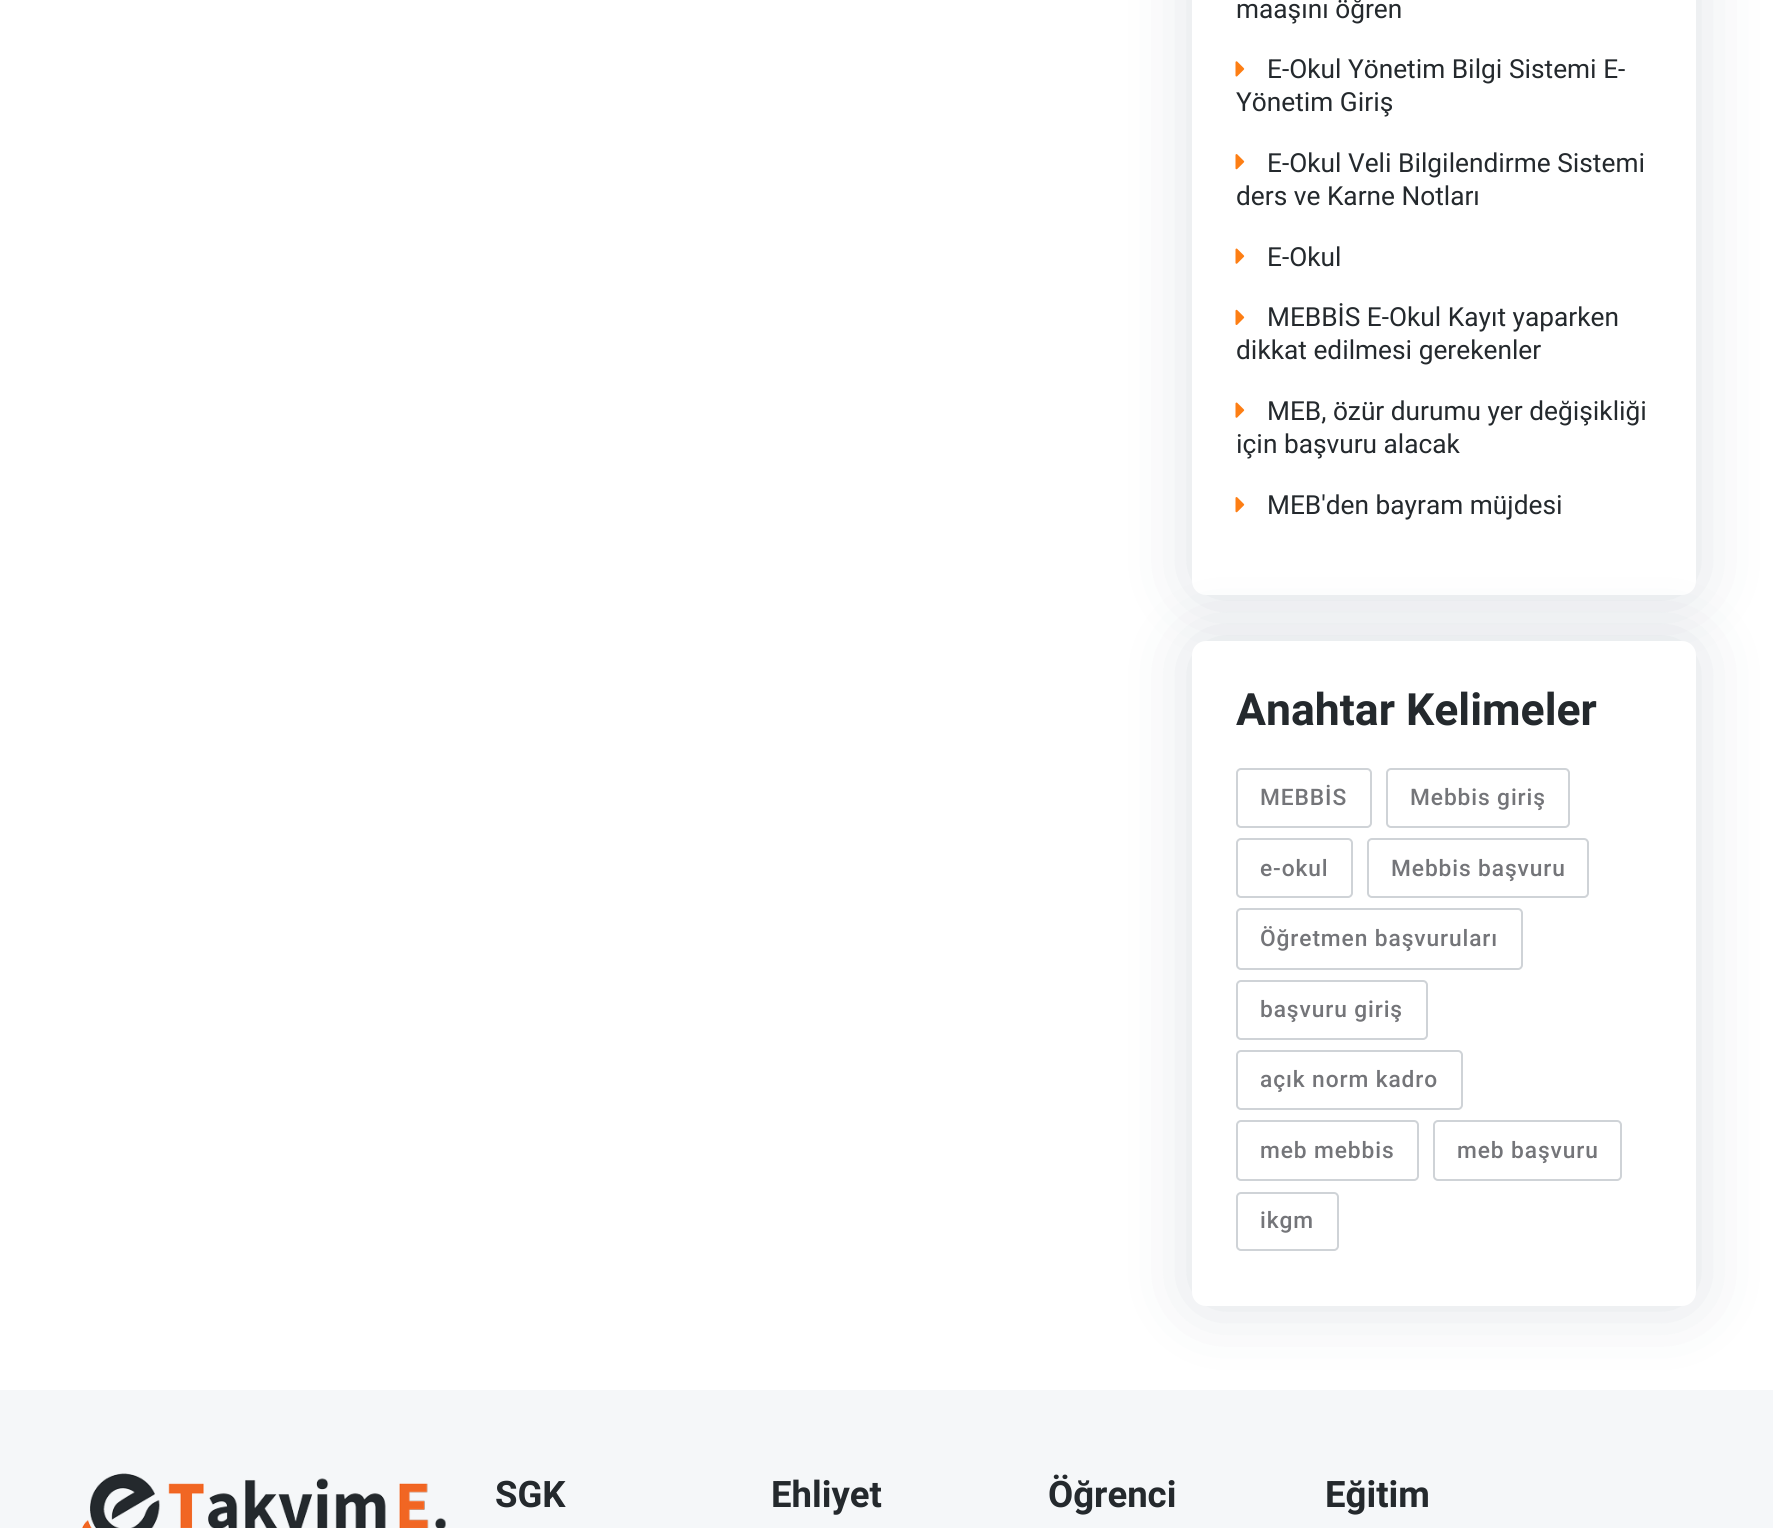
#include <cairo.h>
#include <math.h>
#include <stddef.h>


static void set_color(cairo_t *cr, unsigned color) {
    cairo_set_source_rgb(cr, (color >> 16) / 255.0, (color >> 8 & 255) / 255.0, (color & 255) / 255.0);
}

static void draw_text(cairo_t *cr, double x, double y, const char *s, const char *family, double size, int italic, int bold, unsigned color) {
    cairo_select_font_face(cr, family, italic ? CAIRO_FONT_SLANT_ITALIC : CAIRO_FONT_SLANT_NORMAL,
        bold ? CAIRO_FONT_WEIGHT_BOLD : CAIRO_FONT_WEIGHT_NORMAL);
    cairo_set_font_size(cr, size);
    set_color(cr, color);
    cairo_move_to(cr, x, y);
    cairo_show_text(cr, s);
}

static void draw_spaced(cairo_t *cr, double x, double y, const char *s, double letter, double word) {
    cairo_move_to(cr, x, y);
    while (*s) {
        char ch[5] = {0};
        int n = 0;
        do ch[n++] = *s++; while ((*s & 0xC0) == 0x80);
        cairo_show_text(cr, ch);
        cairo_rel_move_to(cr, letter + word * (*ch == ' '), 0);
    }
}

static void fill_rect(cairo_t *cr, double x, double y, double w, double h, unsigned color) {
    set_color(cr, color);
    cairo_rectangle(cr, x, y, w, h);
    cairo_fill(cr);
}

static void rounded_rect(cairo_t *cr, double x, double y, double w, double h, double r) {
    cairo_new_sub_path(cr);
    cairo_arc(cr, x + w - r, y + h - r, r, 0, M_PI / 2);
    cairo_arc(cr, x + r, y + h - r, r, M_PI / 2, M_PI);
    cairo_arc(cr, x + r, y + r, r, M_PI, 1.5 * M_PI);
    cairo_arc(cr, x + w - r, y + r, r, 1.5 * M_PI, 2 * M_PI);
    cairo_close_path(cr);
}

static void draw_shadow(cairo_t *cr, double x, double y, double w, double h, double r, double blur, double alpha) {
    cairo_push_group_with_content(cr, CAIRO_CONTENT_ALPHA);
    cairo_set_operator(cr, CAIRO_OPERATOR_SOURCE);
    for (int i = 15; i >= -15 && fmin(w, h) + blur * i / 3 > 0; i -= 2) {
        double e = blur * i / 6;
        cairo_set_source_rgba(cr, 0, 0, 0, alpha * erfc((i - 1) / 8.5) / 2);
        rounded_rect(cr, x - e, y - e, w + 2 * e, h + 2 * e, fmax(0, fmin(r + e + blur * .6, fmin(w, h) / 2 + e)));
        cairo_fill(cr);
    }
    cairo_pattern_t *soft = cairo_pop_group(cr);
    cairo_mask(cr, soft);
    cairo_pattern_destroy(soft);
}

static void draw_image(cairo_t *cr, const char *path, double x, double y, double w, double h) {
    cairo_surface_t *image = cairo_image_surface_create_from_png(path);
    cairo_save(cr);
    cairo_set_source_surface(cr, image, x, y);
    cairo_rectangle(cr, x, y, w, h);
    cairo_fill(cr);
    cairo_restore(cr);
    cairo_surface_destroy(image);
}

int main(void) {
    cairo_surface_t *surface = cairo_image_surface_create(CAIRO_FORMAT_RGB24, 1773, 1528);
    cairo_t *cr = cairo_create(surface);
    cairo_font_options_t *options = cairo_font_options_create();
    cairo_font_options_set_hint_metrics(options, CAIRO_HINT_METRICS_OFF);
    cairo_font_options_set_hint_style(options, CAIRO_HINT_STYLE_NONE);
    cairo_set_font_options(cr, options);
    cairo_set_miter_limit(cr, 4);
    set_color(cr, 0xFFFFFF);
    cairo_paint(cr);
    set_color(cr, 0x1D3A53);
    draw_shadow(cr, 1192, -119, 504, 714, 14, 35, 0.15);
    set_color(cr, 0xFFFFFF);
    rounded_rect(cr, 1192, -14, 504, 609, 14);
    cairo_fill(cr);
    draw_text(cr, 1236, 18, "maaşını öğren", "Heebo", 26.25, 0, 0, 0x24292D);
    draw_image(cr, "assets/img1.png", 1235, 61, 10, 16);
    draw_text(cr, 1267, 78, "E-Okul Yönetim Bilgi Sistemi E-", "Heebo", 26.25, 0, 0, 0x24292D);
    draw_text(cr, 1236, 111, "Yönetim Giriş", "Heebo", 26.25, 0, 0, 0x24292D);
    draw_image(cr, "assets/img2.png", 1235, 154, 10, 16);
    draw_text(cr, 1267, 172, "E-Okul Veli Bilgilendirme Sistemi", "Heebo", 26.25, 0, 0, 0x24292D);
    draw_text(cr, 1236, 205, "ders ve Karne Notları", "Heebo", 26.25, 0, 0, 0x24292D);
    draw_image(cr, "assets/img3.png", 1235, 248, 10, 16);
    draw_text(cr, 1267, 266, "E-Okul", "Heebo", 26.25, 0, 0, 0x24292D);
    draw_image(cr, "assets/img4.png", 1235, 309, 10, 16);
    draw_text(cr, 1267, 326, "MEBBİS E-Okul Kayıt yaparken", "Heebo", 26.25, 0, 0, 0x24292D);
    draw_text(cr, 1236, 359, "dikkat edilmesi gerekenler", "Heebo", 26.25, 0, 0, 0x24292D);
    draw_image(cr, "assets/img3.png", 1235, 402, 10, 16);
    draw_text(cr, 1267, 420, "MEB, özür durumu yer değişikliği", "Heebo", 26.25, 0, 0, 0x24292D);
    draw_text(cr, 1236, 453, "için başvuru alacak", "Heebo", 26.25, 0, 0, 0x24292D);
    draw_image(cr, "assets/img2.png", 1235, 497, 10, 16);
    draw_text(cr, 1267, 514, "MEB'den bayram müjdesi", "Heebo", 26.25, 0, 0, 0x24292D);
    fill_rect(cr, 0, 1390, 1773, 138, 0xF5F7F9);
    set_color(cr, 0x1D3A53);
    draw_shadow(cr, 1192, 641, 504, 665, 14, 35, 0.15);
    set_color(cr, 0xFFFFFF);
    rounded_rect(cr, 1192, 641, 504, 665, 14);
    cairo_fill(cr);
    draw_text(cr, 1236, 725, "Anahtar Kelimeler", "Heebo", 44.5, 0, 1, 0x24292D);
    rounded_rect(cr, 1237, 769, 134, 58, 4);
    set_color(cr, 0xCFD3D7);
    cairo_stroke(cr);
    cairo_select_font_face(cr, "Roboto Medium", CAIRO_FONT_SLANT_NORMAL, CAIRO_FONT_WEIGHT_NORMAL);
    cairo_set_font_size(cr, 22.75);
    set_color(cr, 0x747579);
    draw_spaced(cr, 1260, 805, "MEBBİS", 0.9, 0);
    rounded_rect(cr, 1387, 769, 182, 58, 4);
    set_color(cr, 0xCFD3D7);
    cairo_stroke(cr);
    set_color(cr, 0x747579);
    draw_spaced(cr, 1410, 805, "Mebbis giriş", 0.9, 0);
    rounded_rect(cr, 1237, 839, 115, 58, 4);
    set_color(cr, 0xCFD3D7);
    cairo_stroke(cr);
    set_color(cr, 0x747579);
    draw_spaced(cr, 1260, 876, "e-okul", 0.9, 0);
    rounded_rect(cr, 1368, 839, 220, 58, 4);
    set_color(cr, 0xCFD3D7);
    cairo_stroke(cr);
    set_color(cr, 0x747579);
    draw_spaced(cr, 1391, 876, "Mebbis başvuru", 0.9, 0);
    rounded_rect(cr, 1237, 909, 285, 60, 4);
    set_color(cr, 0xCFD3D7);
    cairo_stroke(cr);
    set_color(cr, 0x747579);
    draw_spaced(cr, 1260, 946, "Öğretmen başvuruları", 0.9, 0);
    rounded_rect(cr, 1237, 981, 190, 58, 4);
    set_color(cr, 0xCFD3D7);
    cairo_stroke(cr);
    set_color(cr, 0x747579);
    draw_spaced(cr, 1260, 1017, "başvuru giriş", 0.9, 0);
    rounded_rect(cr, 1237, 1051, 225, 58, 4);
    set_color(cr, 0xCFD3D7);
    cairo_stroke(cr);
    set_color(cr, 0x747579);
    draw_spaced(cr, 1260, 1087, "açık norm kadro", 0.9, 0);
    rounded_rect(cr, 1237, 1121, 181, 59, 4);
    set_color(cr, 0xCFD3D7);
    cairo_stroke(cr);
    set_color(cr, 0x747579);
    draw_spaced(cr, 1260, 1158, "meb mebbis", 0.9, 0);
    rounded_rect(cr, 1434, 1121, 187, 59, 4);
    set_color(cr, 0xCFD3D7);
    cairo_stroke(cr);
    set_color(cr, 0x747579);
    draw_spaced(cr, 1457, 1158, "meb başvuru", 0.9, 0);
    rounded_rect(cr, 1237, 1193, 101, 57, 4);
    set_color(cr, 0xCFD3D7);
    cairo_stroke(cr);
    set_color(cr, 0x747579);
    draw_spaced(cr, 1260, 1228, "ikgm", 0.9, 0);
    draw_image(cr, "assets/img5.png", 82, 1473, 364, 55);
    draw_text(cr, 495, 1507, "SGK", "Heebo", 36.5, 0, 1, 0x24292D);
    draw_text(cr, 771, 1507, "Ehliyet", "Heebo", 36.5, 0, 1, 0x24292D);
    draw_text(cr, 1048, 1507, "Öğrenci", "Heebo", 36.5, 0, 1, 0x24292D);
    draw_text(cr, 1325, 1507, "Eğitim", "Heebo", 36.5, 0, 1, 0x24292D);
    cairo_surface_write_to_png(surface, "output.png");
    cairo_font_options_destroy(options);
    cairo_destroy(cr);
    cairo_surface_destroy(surface);
    return 0;
}
